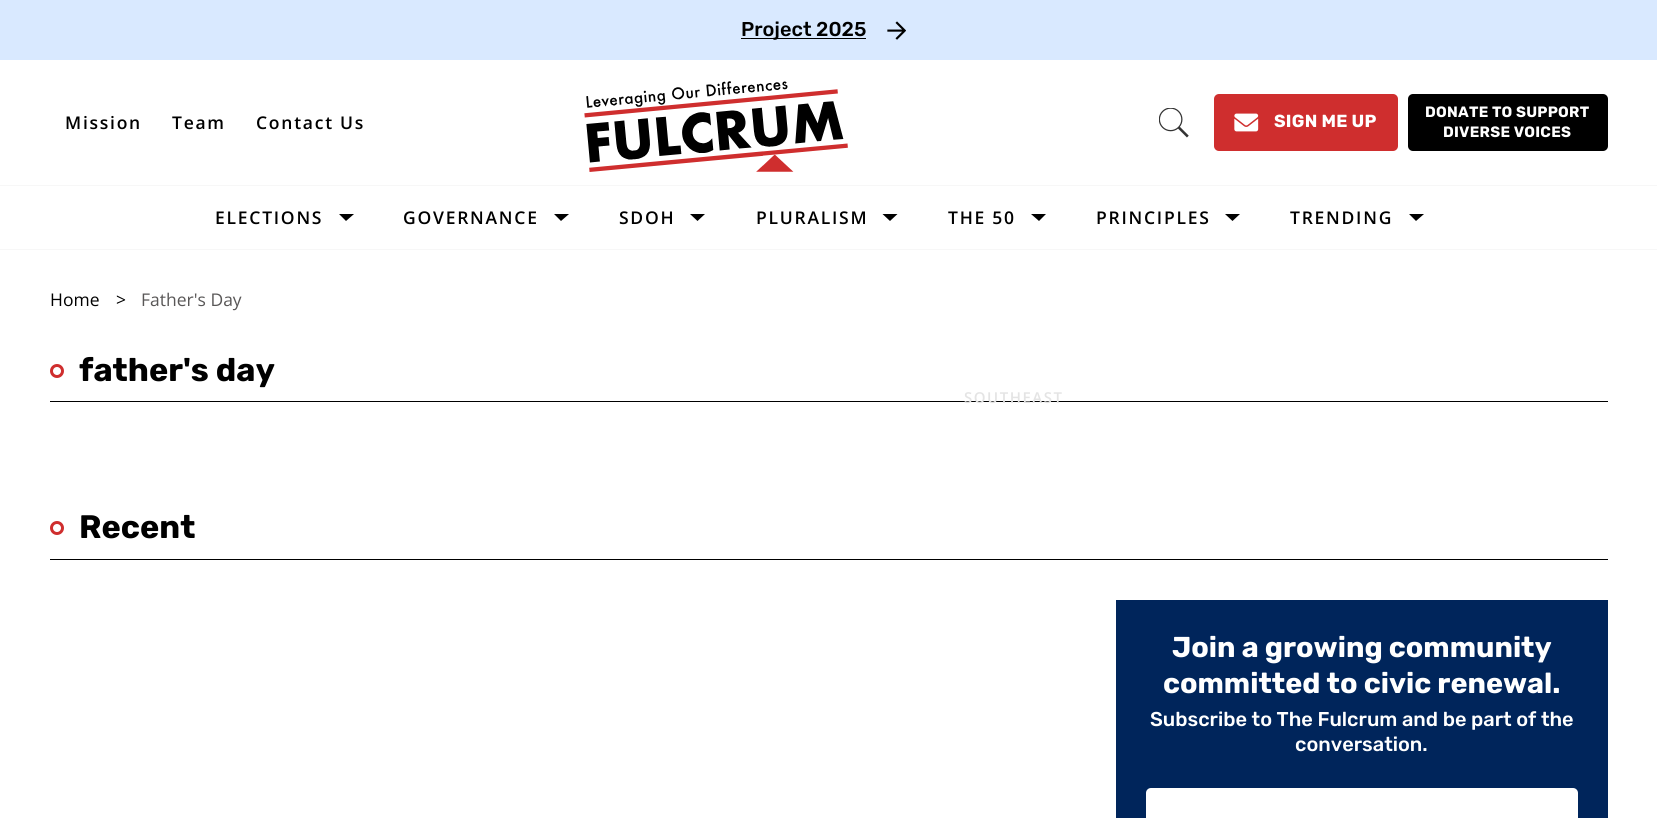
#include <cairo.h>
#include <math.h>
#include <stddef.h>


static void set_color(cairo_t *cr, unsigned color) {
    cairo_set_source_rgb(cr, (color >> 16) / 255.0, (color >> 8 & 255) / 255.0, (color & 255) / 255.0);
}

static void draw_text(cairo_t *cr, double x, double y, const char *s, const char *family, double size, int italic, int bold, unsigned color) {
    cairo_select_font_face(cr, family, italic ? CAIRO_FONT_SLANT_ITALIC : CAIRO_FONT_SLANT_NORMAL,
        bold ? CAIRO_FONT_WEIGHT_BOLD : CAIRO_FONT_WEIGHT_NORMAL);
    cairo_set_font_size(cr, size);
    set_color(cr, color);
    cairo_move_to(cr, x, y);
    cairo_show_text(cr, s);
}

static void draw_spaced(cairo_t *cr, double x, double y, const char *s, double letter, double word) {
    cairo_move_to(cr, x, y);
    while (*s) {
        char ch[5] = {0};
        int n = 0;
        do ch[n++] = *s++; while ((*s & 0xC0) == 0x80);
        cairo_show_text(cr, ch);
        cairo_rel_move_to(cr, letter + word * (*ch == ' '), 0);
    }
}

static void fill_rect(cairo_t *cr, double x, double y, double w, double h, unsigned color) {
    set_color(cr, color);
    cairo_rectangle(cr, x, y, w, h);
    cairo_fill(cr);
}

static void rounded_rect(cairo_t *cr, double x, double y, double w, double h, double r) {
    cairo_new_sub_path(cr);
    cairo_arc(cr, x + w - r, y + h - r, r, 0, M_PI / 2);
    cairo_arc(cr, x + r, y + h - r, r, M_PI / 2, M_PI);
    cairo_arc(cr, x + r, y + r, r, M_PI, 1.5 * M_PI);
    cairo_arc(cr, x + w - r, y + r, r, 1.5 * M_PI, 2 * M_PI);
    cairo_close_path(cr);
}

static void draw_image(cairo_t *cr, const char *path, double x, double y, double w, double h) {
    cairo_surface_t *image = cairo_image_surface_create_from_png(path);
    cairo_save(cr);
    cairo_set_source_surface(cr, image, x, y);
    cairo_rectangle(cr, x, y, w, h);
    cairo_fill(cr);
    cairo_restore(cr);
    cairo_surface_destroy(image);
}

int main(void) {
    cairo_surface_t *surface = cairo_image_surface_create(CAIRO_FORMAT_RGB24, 1657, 818);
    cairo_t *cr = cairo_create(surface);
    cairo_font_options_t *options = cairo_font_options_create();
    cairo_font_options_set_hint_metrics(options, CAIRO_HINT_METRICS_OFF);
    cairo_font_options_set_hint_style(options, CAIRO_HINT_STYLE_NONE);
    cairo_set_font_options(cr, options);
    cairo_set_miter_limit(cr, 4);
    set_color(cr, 0xFFFFFF);
    cairo_paint(cr);
    fill_rect(cr, 0, 0, 1657, 60, 0xD9E9FF);
    fill_rect(cr, 741, 38, 125, 1, 0x000000);
    draw_text(cr, 741, 36, "Project 2025", "Rubik Light", 20, 0, 0, 0x000000);
    draw_image(cr, "assets/img1.png", 887, 21, 19, 19);
    cairo_select_font_face(cr, "Open Sans SemiBold", CAIRO_FONT_SLANT_NORMAL, CAIRO_FONT_WEIGHT_NORMAL);
    cairo_set_font_size(cr, 17.5);
    draw_spaced(cr, 65, 129, "Mission", 1.75, 0);
    draw_spaced(cr, 172, 129, "Team", 1.75, 0);
    draw_spaced(cr, 256, 129, "Contact Us", 1.75, 0);
    draw_image(cr, "assets/img2.png", 584, 81, 264, 91);
    draw_image(cr, "assets/img3.png", 1159, 108, 30, 30);
    set_color(cr, 0xCF2E2E);
    rounded_rect(cr, 1214, 94, 184, 57, 5);
    cairo_fill(cr);
    draw_image(cr, "assets/img4.png", 1234, 113, 25, 19);
    cairo_select_font_face(cr, "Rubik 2 Light", CAIRO_FONT_SLANT_NORMAL, CAIRO_FONT_WEIGHT_NORMAL);
    set_color(cr, 0xFFFFFF);
    draw_spaced(cr, 1274, 127, "SIGN ME UP", 0.25, 0);
    set_color(cr, 0x000000);
    rounded_rect(cr, 1408, 94, 200, 57, 5);
    cairo_fill(cr);
    cairo_set_font_size(cr, 15);
    set_color(cr, 0xFFFFFF);
    draw_spaced(cr, 1425, 117, "DONATE TO SUPPORT", 0.25, 0);
    draw_spaced(cr, 1443, 137, "DIVERSE VOICES", 0.25, 0);
    fill_rect(cr, 0, 185, 1657, 1, 0xF7F7F7);
    fill_rect(cr, 0, 249, 1657, 1, 0xF7F7F7);
    cairo_select_font_face(cr, "Open Sans SemiBold", CAIRO_FONT_SLANT_NORMAL, CAIRO_FONT_WEIGHT_NORMAL);
    cairo_set_font_size(cr, 17.5);
    set_color(cr, 0x000000);
    draw_spaced(cr, 215, 224, "ELECTIONS", 1.75, 0);
    cairo_new_path(cr);
    cairo_move_to(cr, 339, 214);
    cairo_line_to(cr, 354, 214);
    cairo_line_to(cr, 346, 221);
    cairo_close_path(cr);
    cairo_fill(cr);
    draw_spaced(cr, 403, 224, "GOVERNANCE", 1.75, 0);
    cairo_new_path(cr);
    cairo_move_to(cr, 554, 214);
    cairo_line_to(cr, 569, 214);
    cairo_line_to(cr, 561, 221);
    cairo_close_path(cr);
    cairo_fill(cr);
    draw_spaced(cr, 619, 224, "SDOH", 1.75, 0);
    cairo_new_path(cr);
    cairo_move_to(cr, 690, 214);
    cairo_line_to(cr, 705, 214);
    cairo_line_to(cr, 697.5, 221);
    cairo_close_path(cr);
    cairo_fill(cr);
    draw_spaced(cr, 756, 224, "PLURALISM", 1.75, 0);
    cairo_new_path(cr);
    cairo_move_to(cr, 882.5, 214);
    cairo_line_to(cr, 897.5, 214);
    cairo_line_to(cr, 890, 221);
    cairo_close_path(cr);
    cairo_fill(cr);
    draw_spaced(cr, 948, 224, "THE 50", 1.75, 0);
    cairo_new_path(cr);
    cairo_move_to(cr, 1031, 214);
    cairo_line_to(cr, 1046, 214);
    cairo_line_to(cr, 1039, 221);
    cairo_close_path(cr);
    cairo_fill(cr);
    fill_rect(cr, 50, 401, 1558, 1, 0x000000);
    cairo_set_font_size(cr, 15);
    set_color(cr, 0xE4E4E4);
    draw_spaced(cr, 964, 403, "SOUTHEAST", 1.5, 0);
    cairo_set_font_size(cr, 17.5);
    set_color(cr, 0x000000);
    draw_spaced(cr, 1096, 224, "PRINCIPLES", 1.75, 0);
    cairo_new_path(cr);
    cairo_move_to(cr, 1225, 214);
    cairo_line_to(cr, 1240, 214);
    cairo_line_to(cr, 1232.5, 221);
    cairo_close_path(cr);
    cairo_fill(cr);
    draw_spaced(cr, 1290, 224, "TRENDING", 1.75, 0);
    cairo_new_path(cr);
    cairo_move_to(cr, 1409, 214);
    cairo_line_to(cr, 1424, 214);
    cairo_line_to(cr, 1416, 221);
    cairo_close_path(cr);
    cairo_fill(cr);
    draw_text(cr, 50, 306, "Home", "Open Sans", 17.5, 0, 0, 0x000000);
    draw_text(cr, 116, 306, ">", "Open Sans", 17.5, 0, 0, 0x000000);
    draw_text(cr, 141, 306, "Father's Day", "Open Sans", 17.5, 0, 0, 0x595757);
    cairo_new_path(cr);
    cairo_arc(cr, 57, 371, 5.5, 0, 2 * M_PI);
    set_color(cr, 0xCF2E2E);
    cairo_set_line_width(cr, 3);
    cairo_stroke(cr);
    draw_text(cr, 79, 381, "father's day", "Rubik 2 Light", 32.5, 0, 0, 0x000000);
    fill_rect(cr, 50, 559, 1558, 1, 0x000000);
    cairo_new_path(cr);
    cairo_arc(cr, 57, 528, 5.5, 0, 2 * M_PI);
    set_color(cr, 0xCF2E2E);
    cairo_stroke(cr);
    draw_text(cr, 79, 538, "Recent", "Rubik 2 Light", 32.5, 0, 0, 0x000000);
    fill_rect(cr, 1116, 600, 492, 218, 0x00255B);
    draw_text(cr, 1172, 657, "Join a growing community", "Rubik 2 Light", 28.75, 0, 0, 0xFFFFFF);
    draw_text(cr, 1163, 693, "committed to civic renewal.", "Rubik 2 Light", 28.75, 0, 0, 0xFFFFFF);
    draw_text(cr, 1150, 726, "Subscribe to The Fulcrum and be part of the", "Rubik Light", 20, 0, 0, 0xFFFFFF);
    draw_text(cr, 1295, 751, "conversation.", "Rubik Light", 20, 0, 0, 0xFFFFFF);
    rounded_rect(cr, 1146, 788, 432, 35, 5);
    cairo_fill(cr);
    cairo_surface_write_to_png(surface, "output.png");
    cairo_font_options_destroy(options);
    cairo_destroy(cr);
    cairo_surface_destroy(surface);
    return 0;
}
